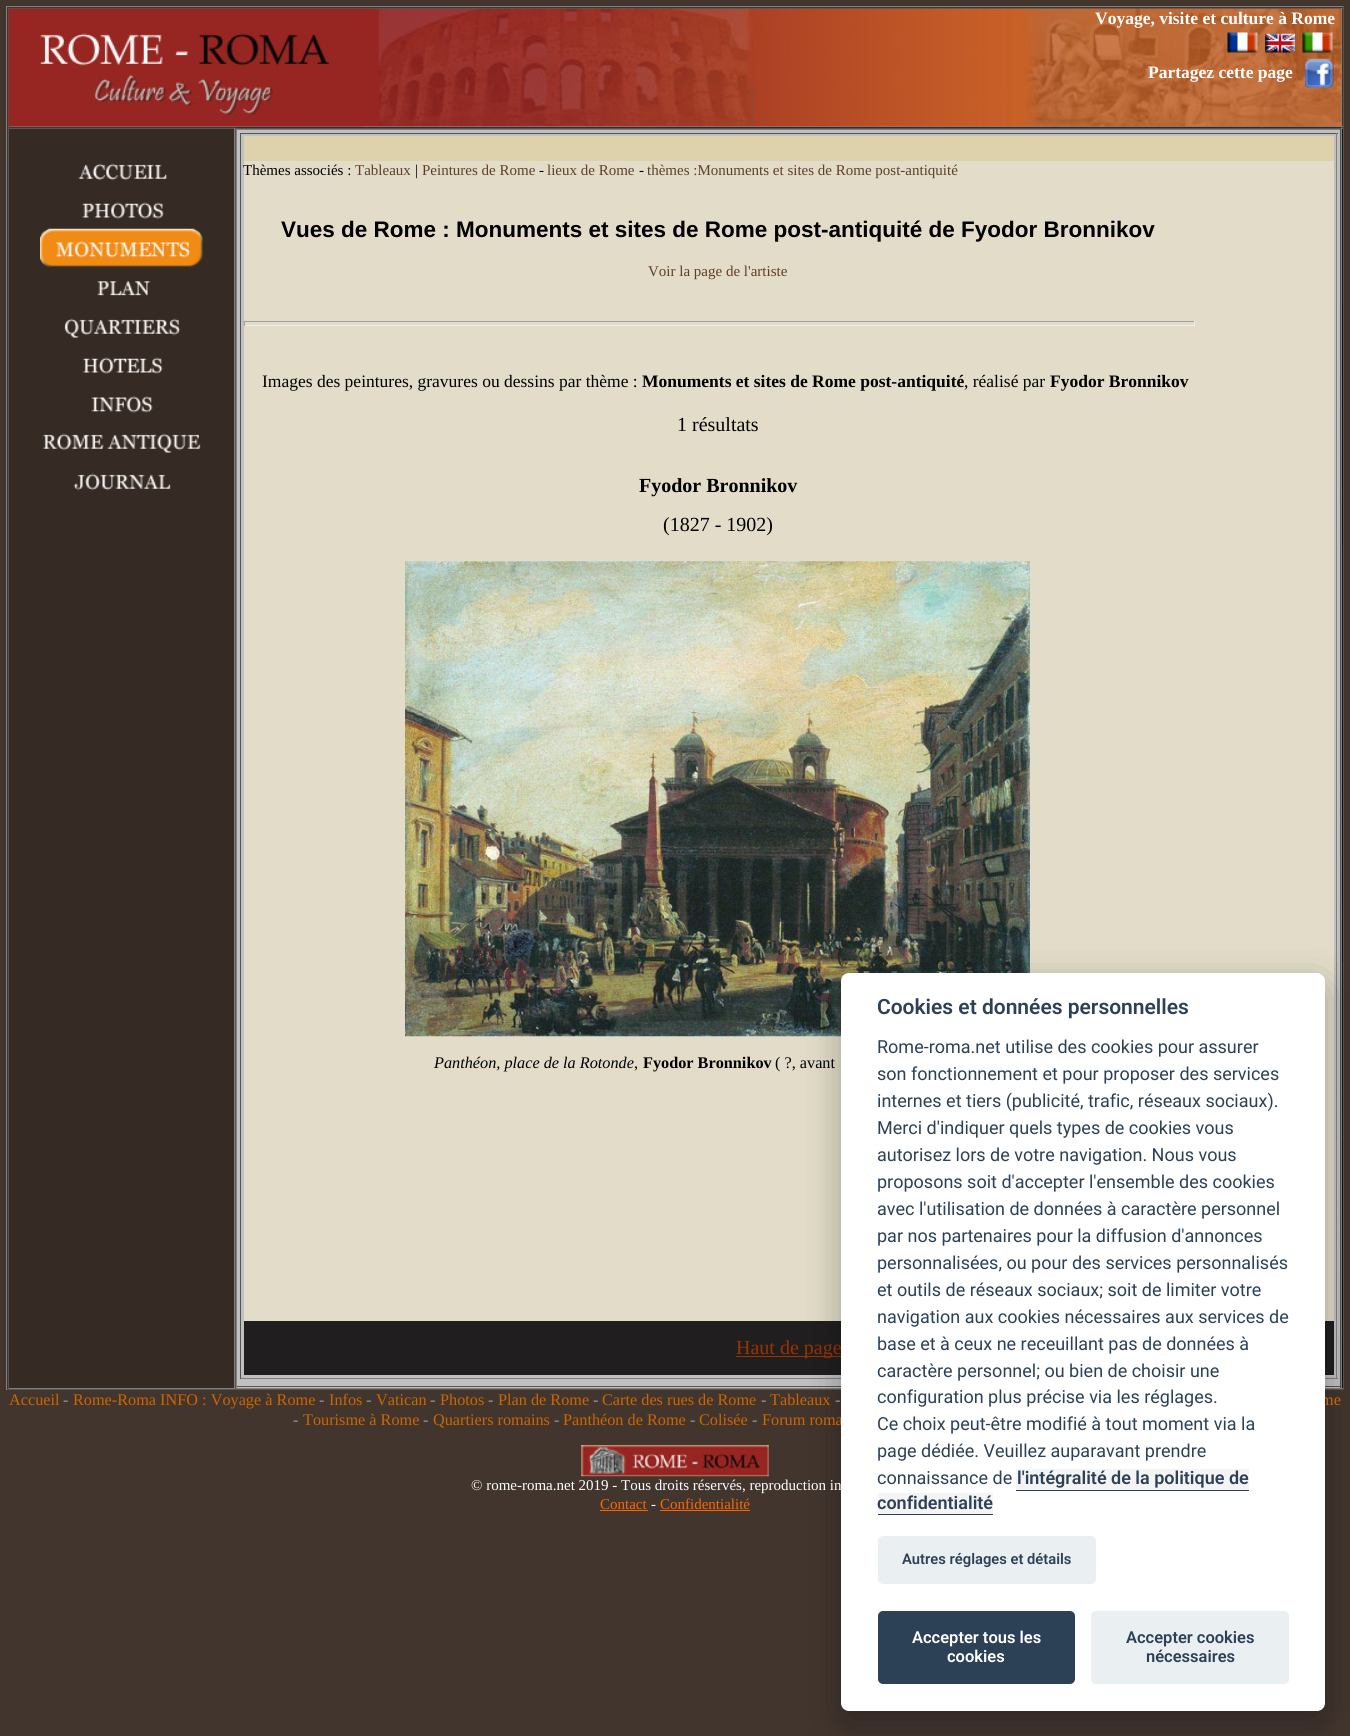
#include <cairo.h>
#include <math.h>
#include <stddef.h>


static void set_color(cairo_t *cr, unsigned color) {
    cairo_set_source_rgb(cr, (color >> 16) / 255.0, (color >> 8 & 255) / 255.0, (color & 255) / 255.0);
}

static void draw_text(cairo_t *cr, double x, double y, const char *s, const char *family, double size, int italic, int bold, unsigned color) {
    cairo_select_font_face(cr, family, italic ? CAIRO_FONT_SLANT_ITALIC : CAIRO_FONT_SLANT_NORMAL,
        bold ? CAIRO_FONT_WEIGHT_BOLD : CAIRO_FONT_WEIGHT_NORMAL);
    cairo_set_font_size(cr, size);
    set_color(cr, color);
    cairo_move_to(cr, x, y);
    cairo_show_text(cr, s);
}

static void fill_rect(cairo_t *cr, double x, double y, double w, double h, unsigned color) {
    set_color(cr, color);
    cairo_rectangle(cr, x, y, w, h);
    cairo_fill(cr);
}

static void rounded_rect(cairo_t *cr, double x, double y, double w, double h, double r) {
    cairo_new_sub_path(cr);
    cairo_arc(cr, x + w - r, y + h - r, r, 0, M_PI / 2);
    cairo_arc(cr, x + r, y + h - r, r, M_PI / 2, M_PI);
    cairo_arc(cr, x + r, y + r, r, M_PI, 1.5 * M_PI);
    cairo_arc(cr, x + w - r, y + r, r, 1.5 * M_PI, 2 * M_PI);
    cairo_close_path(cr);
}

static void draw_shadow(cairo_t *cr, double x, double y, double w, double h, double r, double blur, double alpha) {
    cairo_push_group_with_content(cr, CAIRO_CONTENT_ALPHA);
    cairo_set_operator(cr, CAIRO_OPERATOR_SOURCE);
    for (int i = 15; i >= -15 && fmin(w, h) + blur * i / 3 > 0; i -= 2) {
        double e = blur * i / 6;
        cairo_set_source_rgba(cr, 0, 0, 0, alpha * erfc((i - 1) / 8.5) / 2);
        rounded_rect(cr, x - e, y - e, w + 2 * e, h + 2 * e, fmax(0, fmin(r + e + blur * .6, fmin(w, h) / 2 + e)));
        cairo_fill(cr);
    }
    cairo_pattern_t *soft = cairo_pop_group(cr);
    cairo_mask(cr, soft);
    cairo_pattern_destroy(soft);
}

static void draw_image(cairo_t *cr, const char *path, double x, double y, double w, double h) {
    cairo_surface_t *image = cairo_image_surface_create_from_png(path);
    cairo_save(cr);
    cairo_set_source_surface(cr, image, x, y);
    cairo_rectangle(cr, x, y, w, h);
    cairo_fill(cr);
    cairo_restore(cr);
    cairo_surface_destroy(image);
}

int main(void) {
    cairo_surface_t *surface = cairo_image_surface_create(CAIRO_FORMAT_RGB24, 1350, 1736);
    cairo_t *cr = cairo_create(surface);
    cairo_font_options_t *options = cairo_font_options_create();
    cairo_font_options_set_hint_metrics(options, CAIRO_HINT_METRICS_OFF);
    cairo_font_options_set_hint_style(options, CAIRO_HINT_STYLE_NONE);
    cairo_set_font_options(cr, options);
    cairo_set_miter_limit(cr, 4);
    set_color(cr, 0x42352E);
    cairo_paint(cr);
    fill_rect(cr, 6, 6, 1338, 1, 0x808080);
    fill_rect(cr, 1343, 6, 1, 1384, 0x555555);
    fill_rect(cr, 6, 1389, 1338, 1, 0x555555);
    fill_rect(cr, 6, 6, 1, 1384, 0x808080);
    fill_rect(cr, 8, 8, 1335, 1, 0x555555);
    fill_rect(cr, 1341, 8, 1, 120, 0x808080);
    fill_rect(cr, 8, 126, 1335, 1, 0x808080);
    fill_rect(cr, 8, 8, 1, 120, 0x555555);
    draw_image(cr, "assets/img1.png", 8, 8, 1334, 119);
    draw_image(cr, "assets/img2.png", 8, 8, 355, 119);
    draw_text(cr, 1095, 24, "Voyage, visite et culture à Rome", "Liberation Serif", 17.5, 0, 1, 0xFFFFFF);
    draw_image(cr, "assets/img3.png", 1227, 32, 31, 21);
    draw_image(cr, "assets/img4.png", 1265, 33, 30, 20);
    draw_image(cr, "assets/img5.png", 1302, 32, 31, 21);
    draw_text(cr, 1148, 78, "Partagez cette page", "Liberation Serif", 17.5, 0, 1, 0xFFFFFF);
    draw_image(cr, "assets/img6.png", 1305, 58, 29, 30);
    fill_rect(cr, 9, 129, 225, 1259, 0x352A24);
    fill_rect(cr, 8, 128, 227, 1, 0x555555);
    fill_rect(cr, 234, 128, 1, 1261, 0x808080);
    fill_rect(cr, 8, 1388, 227, 1, 0x808080);
    fill_rect(cr, 8, 128, 1, 1261, 0x555555);
    draw_image(cr, "assets/img7.png", 78, 163, 89, 18);
    draw_image(cr, "assets/img8.png", 82, 202, 82, 17);
    draw_image(cr, "assets/img9.png", 40, 228, 163, 40);
    draw_image(cr, "assets/img10.png", 97, 281, 54, 15);
    draw_image(cr, "assets/img11.png", 64, 318, 117, 20);
    draw_image(cr, "assets/img12.png", 82, 357, 81, 17);
    draw_image(cr, "assets/img13.png", 91, 396, 62, 17);
    draw_image(cr, "assets/img14.png", 42, 433, 159, 20);
    draw_image(cr, "assets/img15.png", 73, 473, 98, 18);
    fill_rect(cr, 1342, 129, 1, 1259, 0x000000);
    draw_image(cr, "assets/img16.png", 235, 127, 1108, 1261);
    fill_rect(cr, 235, 128, 1108, 1, 0x555555);
    fill_rect(cr, 1341, 128, 1, 1261, 0x808080);
    fill_rect(cr, 235, 1388, 1108, 1, 0x808080);
    fill_rect(cr, 235, 128, 1, 1261, 0x555555);
    fill_rect(cr, 237, 130, 1103, 1258, 0xC0C0C0);
    fill_rect(cr, 236, 129, 1105, 1, 0x808080);
    fill_rect(cr, 1340, 129, 1, 1259, 0x555555);
    fill_rect(cr, 236, 1386, 1105, 1, 0x555555);
    fill_rect(cr, 236, 129, 1, 1259, 0x808080);
    fill_rect(cr, 240, 133, 1098, 1, 0x555555);
    fill_rect(cr, 1336, 133, 1, 1246, 0x808080);
    fill_rect(cr, 240, 1378, 1098, 1, 0x808080);
    fill_rect(cr, 240, 133, 1, 1246, 0x555555);
    fill_rect(cr, 244, 136, 1090, 25, 0xDDD2AC);
    fill_rect(cr, 244, 161, 1090, 1160, 0xE2DCC8);
    draw_text(cr, 243, 175, "Thèmes associés :", "Liberation Serif", 15, 0, 0, 0x000000);
    draw_text(cr, 355, 175, "Tableaux", "Liberation Serif", 15, 0, 0, 0x5E3F28);
    draw_text(cr, 415, 175, "|", "Liberation Serif", 15, 0, 0, 0x000000);
    draw_text(cr, 422, 175, "Peintures de Rome", "Liberation Serif", 15, 0, 0, 0x5E3F28);
    draw_text(cr, 539, 175, "-", "Liberation Serif", 15, 0, 0, 0x000000);
    draw_text(cr, 547, 175, "lieux de Rome", "Liberation Serif", 15, 0, 0, 0x5E3F28);
    draw_text(cr, 639, 175, "-", "Liberation Serif", 15, 0, 0, 0x000000);
    draw_text(cr, 647, 175, "thèmes :Monuments et sites de Rome post-antiquité", "Liberation Serif", 15, 0, 0, 0x5E3F28);
    draw_text(cr, 281, 237, "Vues de Rome : Monuments et sites de Rome post-antiquité de Fyodor Bronnikov", "Liberation Sans", 22.5, 0, 1, 0x000000);
    draw_text(cr, 648, 276, "Voir la page de l'artiste", "Liberation Serif", 15, 0, 0, 0x5E3F28);
    fill_rect(cr, 244, 321, 951, 1, 0x9F9F9F);
    fill_rect(cr, 1194, 321, 1, 5, 0xEEEEEE);
    fill_rect(cr, 244, 325, 951, 1, 0xEEEEEE);
    fill_rect(cr, 244, 321, 1, 5, 0x9F9F9F);
    draw_text(cr, 262, 387, "Images des peintures, gravures ou dessins par thème :", "Liberation Serif", 17.5, 0, 0, 0x000000);
    draw_text(cr, 642, 387, "Monuments et sites de Rome post-antiquité", "Liberation Serif", 17.5, 0, 1, 0x000000);
    draw_text(cr, 964, 387, ", réalisé par", "Liberation Serif", 17.5, 0, 0, 0x000000);
    draw_text(cr, 1050, 387, "Fyodor Bronnikov", "Liberation Serif", 17.5, 0, 1, 0x000000);
    draw_text(cr, 677, 431, "1 résultats", "Liberation Serif", 20, 0, 0, 0x000000);
    draw_text(cr, 639, 492, "Fyodor Bronnikov", "Liberation Serif", 20, 0, 1, 0x000000);
    draw_text(cr, 663, 531, "(1827 - 1902)", "Liberation Serif", 20, 0, 0, 0x000000);
    draw_image(cr, "assets/img17.png", 405, 561, 625, 476);
    draw_text(cr, 434, 1068, "Panthéon, place de la Rotonde", "Liberation Serif", 16.25, 1, 0, 0x000000);
    draw_text(cr, 634, 1068, ",", "Liberation Serif", 16.25, 0, 0, 0x000000);
    draw_text(cr, 643, 1068, "Fyodor Bronnikov", "Liberation Serif", 16.25, 0, 1, 0x000000);
    draw_text(cr, 775, 1068, "( ?, avant", "Liberation Serif", 16.25, 0, 0, 0x000000);
    fill_rect(cr, 244, 1321, 1090, 54, 0x201E1E);
    fill_rect(cr, 736, 1356, 105, 1, 0x993300);
    draw_text(cr, 736, 1354, "Haut de page", "Liberation Serif", 20, 0, 0, 0x993300);
    set_color(cr, 0x020203);
    draw_shadow(cr, 841, 985, 484, 739, 8, 19, 0.28);
    draw_text(cr, 1321, 1405, "me", "Liberation Serif", 16.25, 0, 0, 0xCC6600);
    draw_text(cr, 762, 1425, "Forum roma", "Liberation Serif", 16.25, 0, 0, 0xCC6600);
    set_color(cr, 0xFFFFFF);
    rounded_rect(cr, 841, 973, 484, 738, 8);
    cairo_fill(cr);
    draw_text(cr, 877, 1014, "Cookies et données personnelles", "Roboto SemiBold", 21, 0, 0, 0x2D4156);
    draw_text(cr, 877, 1053, "Rome-roma.net utilise des cookies pour assurer", "Roboto", 18, 0, 0, 0x2D4156);
    draw_text(cr, 877, 1080, "son fonctionnement et pour proposer des services", "Roboto", 18, 0, 0, 0x2D4156);
    draw_text(cr, 877, 1107, "internes et tiers (publicité, trafic, réseaux sociaux).", "Roboto", 18, 0, 0, 0x2D4156);
    draw_text(cr, 877, 1134, "Merci d'indiquer quels types de cookies vous", "Roboto", 18, 0, 0, 0x2D4156);
    draw_text(cr, 877, 1161, "autorisez lors de votre navigation. Nous vous", "Roboto", 18, 0, 0, 0x2D4156);
    draw_text(cr, 877, 1188, "proposons soit d'accepter l'ensemble des cookies", "Roboto", 18, 0, 0, 0x2D4156);
    draw_text(cr, 877, 1215, "avec l'utilisation de données à caractère personnel", "Roboto", 18, 0, 0, 0x2D4156);
    draw_text(cr, 877, 1242, "par nos partenaires pour la diffusion d'annonces", "Roboto", 18, 0, 0, 0x2D4156);
    draw_text(cr, 877, 1269, "personnalisées, ou pour des services personnalisés", "Roboto", 18, 0, 0, 0x2D4156);
    draw_text(cr, 877, 1296, "et outils de réseaux sociaux; soit de limiter votre", "Roboto", 18, 0, 0, 0x2D4156);
    draw_text(cr, 877, 1323, "navigation aux cookies nécessaires aux services de", "Roboto", 18, 0, 0, 0x2D4156);
    draw_text(cr, 877, 1350, "base et à ceux ne receuillant pas de données à", "Roboto", 18, 0, 0, 0x2D4156);
    draw_text(cr, 877, 1377, "caractère personnel; ou bien de choisir une", "Roboto", 18, 0, 0, 0x2D4156);
    draw_text(cr, 877, 1403, "configuration plus précise via les réglages.", "Roboto", 18, 0, 0, 0x2D4156);
    draw_text(cr, 877, 1430, "Ce choix peut-être modifié à tout moment via la", "Roboto", 18, 0, 0, 0x2D4156);
    draw_text(cr, 877, 1457, "page dédiée. Veuillez auparavant prendre", "Roboto", 18, 0, 0, 0x2D4156);
    draw_text(cr, 877, 1484, "connaissance de", "Roboto", 18, 0, 0, 0x2D4156);
    fill_rect(cr, 1016, 1469, 233, 21, 0xF4F4F4);
    draw_text(cr, 1017, 1484, "l'intégralité de la politique de", "Roboto SemiBold", 18, 0, 0, 0x2D4156);
    fill_rect(cr, 1016, 1490, 233, 1, 0x2D4156);
    fill_rect(cr, 878, 1493, 115, 21, 0xF4F4F4);
    draw_text(cr, 877, 1509, "confidentialité", "Roboto SemiBold", 18, 0, 0, 0x2D4156);
    fill_rect(cr, 878, 1514, 115, 1, 0x2D4156);
    set_color(cr, 0xEAEFF2);
    rounded_rect(cr, 878, 1536, 218, 48, 5);
    cairo_fill(cr);
    draw_text(cr, 902, 1564, "Autres réglages et détails", "Roboto SemiBold", 14.75, 0, 0, 0x2D4156);
    rounded_rect(cr, 878, 1611, 197, 73, 5);
    cairo_fill(cr);
    draw_text(cr, 912, 1643, "Accepter tous les", "Roboto SemiBold", 16.5, 0, 0, 0xFFFFFF);
    draw_text(cr, 947, 1662, "cookies", "Roboto SemiBold", 16.5, 0, 0, 0xFFFFFF);
    set_color(cr, 0xEAEFF2);
    rounded_rect(cr, 1091, 1611, 198, 73, 5);
    cairo_fill(cr);
    draw_text(cr, 1126, 1643, "Accepter cookies", "Roboto SemiBold", 16.5, 0, 0, 0x2D4156);
    draw_text(cr, 1146, 1662, "nécessaires", "Roboto SemiBold", 16.5, 0, 0, 0x2D4156);
    draw_text(cr, 9, 1405, "Accueil", "Liberation Serif", 16.25, 0, 0, 0xCC6600);
    draw_text(cr, 63, 1405, "-", "Liberation Serif", 16.25, 0, 0, 0x999999);
    draw_text(cr, 73, 1405, "Rome-Roma INFO : Voyage à Rome", "Liberation Serif", 16.25, 0, 0, 0xCC6600);
    draw_text(cr, 319, 1405, "-", "Liberation Serif", 16.25, 0, 0, 0x999999);
    draw_text(cr, 329, 1405, "Infos", "Liberation Serif", 16.25, 0, 0, 0xCC6600);
    draw_text(cr, 366, 1405, "-", "Liberation Serif", 16.25, 0, 0, 0x999999);
    draw_text(cr, 376, 1405, "Vatican", "Liberation Serif", 16.25, 0, 0, 0xCC6600);
    draw_text(cr, 430, 1405, "-", "Liberation Serif", 16.25, 0, 0, 0x999999);
    draw_text(cr, 440, 1405, "Photos", "Liberation Serif", 16.25, 0, 0, 0xCC6600);
    draw_text(cr, 488, 1405, "-", "Liberation Serif", 16.25, 0, 0, 0x999999);
    draw_text(cr, 498, 1405, "Plan de Rome", "Liberation Serif", 16.25, 0, 0, 0xCC6600);
    draw_text(cr, 593, 1405, "-", "Liberation Serif", 16.25, 0, 0, 0x999999);
    draw_text(cr, 602, 1405, "Carte des rues de Rome", "Liberation Serif", 16.25, 0, 0, 0xCC6600);
    draw_text(cr, 761, 1405, "-", "Liberation Serif", 16.25, 0, 0, 0x999999);
    draw_text(cr, 770, 1405, "Tableaux", "Liberation Serif", 16.25, 0, 0, 0xCC6600);
    draw_text(cr, 835, 1405, "-", "Liberation Serif", 16.25, 0, 0, 0x999999);
    draw_text(cr, 293, 1425, "-", "Liberation Serif", 16.25, 0, 0, 0x999999);
    draw_text(cr, 303, 1425, "Tourisme à Rome", "Liberation Serif", 16.25, 0, 0, 0xCC6600);
    draw_text(cr, 423, 1425, "-", "Liberation Serif", 16.25, 0, 0, 0x999999);
    draw_text(cr, 433, 1425, "Quartiers romains", "Liberation Serif", 16.25, 0, 0, 0xCC6600);
    draw_text(cr, 554, 1425, "-", "Liberation Serif", 16.25, 0, 0, 0x999999);
    draw_text(cr, 563, 1425, "Panthéon de Rome", "Liberation Serif", 16.25, 0, 0, 0xCC6600);
    draw_text(cr, 690, 1425, "-", "Liberation Serif", 16.25, 0, 0, 0x999999);
    draw_text(cr, 699, 1425, "Colisée", "Liberation Serif", 16.25, 0, 0, 0xCC6600);
    draw_text(cr, 752, 1425, "-", "Liberation Serif", 16.25, 0, 0, 0x999999);
    draw_image(cr, "assets/img18.png", 581, 1445, 188, 32);
    draw_text(cr, 471, 1490, "© rome-roma.net 2019 - Tous droits réservés, reproduction in", "Liberation Serif", 15, 0, 0, 0xFFFFFF);
    draw_text(cr, 600, 1509, "Contact", "Liberation Serif", 15, 0, 0, 0xFF6600);
    fill_rect(cr, 600, 1510, 48, 1, 0xFF6600);
    draw_text(cr, 651, 1509, "-", "Liberation Serif", 15, 0, 0, 0xFFFFFF);
    draw_text(cr, 660, 1509, "Confidentialité", "Liberation Serif", 15, 0, 0, 0xFF6600);
    fill_rect(cr, 660, 1510, 90, 1, 0xFF6600);
    cairo_surface_write_to_png(surface, "output.png");
    cairo_font_options_destroy(options);
    cairo_destroy(cr);
    cairo_surface_destroy(surface);
    return 0;
}
